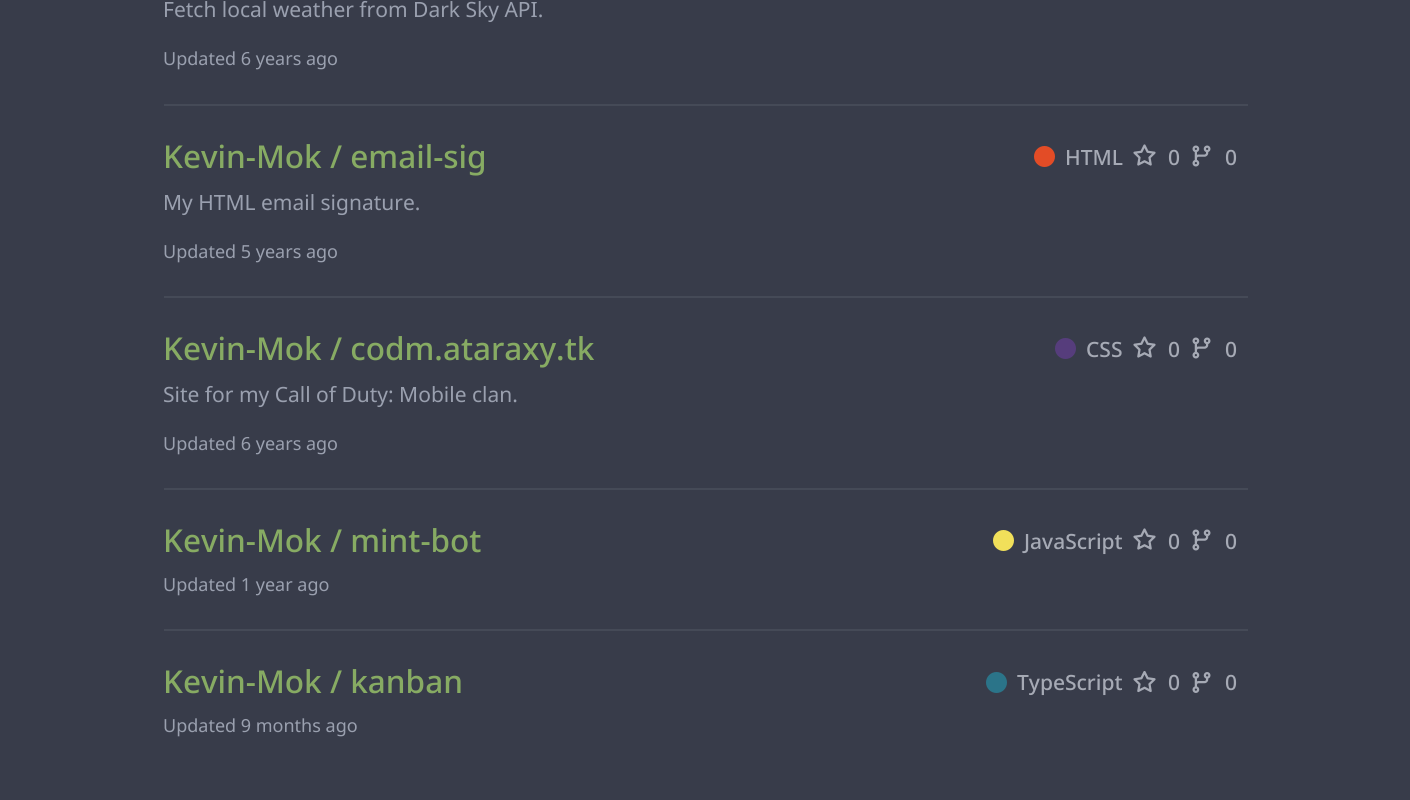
#include <cairo.h>
#include <math.h>
#include <stddef.h>


static void set_color(cairo_t *cr, unsigned color) {
    cairo_set_source_rgb(cr, (color >> 16) / 255.0, (color >> 8 & 255) / 255.0, (color & 255) / 255.0);
}

static void draw_text(cairo_t *cr, double x, double y, const char *s, const char *family, double size, int italic, int bold, unsigned color) {
    cairo_select_font_face(cr, family, italic ? CAIRO_FONT_SLANT_ITALIC : CAIRO_FONT_SLANT_NORMAL,
        bold ? CAIRO_FONT_WEIGHT_BOLD : CAIRO_FONT_WEIGHT_NORMAL);
    cairo_set_font_size(cr, size);
    set_color(cr, color);
    cairo_move_to(cr, x, y);
    cairo_show_text(cr, s);
}

static void fill_rect(cairo_t *cr, double x, double y, double w, double h, unsigned color) {
    set_color(cr, color);
    cairo_rectangle(cr, x, y, w, h);
    cairo_fill(cr);
}

static void draw_image(cairo_t *cr, const char *path, double x, double y, double w, double h) {
    cairo_surface_t *image = cairo_image_surface_create_from_png(path);
    cairo_save(cr);
    cairo_set_source_surface(cr, image, x, y);
    cairo_rectangle(cr, x, y, w, h);
    cairo_fill(cr);
    cairo_restore(cr);
    cairo_surface_destroy(image);
}

int main(void) {
    cairo_surface_t *surface = cairo_image_surface_create(CAIRO_FORMAT_RGB24, 1410, 800);
    cairo_t *cr = cairo_create(surface);
    cairo_font_options_t *options = cairo_font_options_create();
    cairo_font_options_set_hint_metrics(options, CAIRO_HINT_METRICS_OFF);
    cairo_font_options_set_hint_style(options, CAIRO_HINT_STYLE_NONE);
    cairo_set_font_options(cr, options);
    cairo_set_miter_limit(cr, 4);
    set_color(cr, 0x383C4A);
    cairo_paint(cr);
    draw_text(cr, 163, 17, "Fetch local weather from Dark Sky API.", "Noto Sans", 21, 0, 0, 0x9AA0AF);
    draw_text(cr, 163, 65, "Updated 6 years ago", "Noto Sans", 18, 0, 0, 0x9AA0AF);
    fill_rect(cr, 164, 104, 1084, 2, 0x454A57);
    draw_text(cr, 163, 168, "Kevin-Mok / email-sig", "Noto Sans Medium", 31.5, 0, 0, 0x87AB63);
    set_color(cr, 0xE34C26);
    cairo_new_path(cr);
    cairo_arc(cr, 1044.5, 156.5, 10.5, 0, 2 * M_PI);
    cairo_fill(cr);
    draw_text(cr, 1065, 165, "HTML", "Noto Sans Medium", 21, 0, 0, 0xA6AAB5);
    draw_image(cr, "assets/img1.png", 1133, 144, 23, 22);
    draw_text(cr, 1168, 165, "0", "Noto Sans Medium", 21, 0, 0, 0xA6AAB5);
    draw_image(cr, "assets/img2.png", 1192, 145, 19, 22);
    draw_text(cr, 1225, 165, "0", "Noto Sans Medium", 21, 0, 0, 0xA6AAB5);
    draw_text(cr, 163, 210, "My HTML email signature.", "Noto Sans", 21, 0, 0, 0x9AA0AF);
    draw_text(cr, 163, 258, "Updated 5 years ago", "Noto Sans", 18, 0, 0, 0x9AA0AF);
    fill_rect(cr, 164, 296, 1084, 2, 0x454A57);
    draw_text(cr, 163, 360, "Kevin-Mok / codm.ataraxy.tk", "Noto Sans Medium", 31.5, 0, 0, 0x87AB63);
    set_color(cr, 0x563D7C);
    cairo_new_path(cr);
    cairo_arc(cr, 1065.5, 348.5, 10.5, 0, 2 * M_PI);
    cairo_fill(cr);
    draw_text(cr, 1086, 357, "CSS", "Noto Sans Medium", 21, 0, 0, 0xA6AAB5);
    draw_image(cr, "assets/img1.png", 1133, 336, 23, 22);
    draw_text(cr, 1168, 357, "0", "Noto Sans Medium", 21, 0, 0, 0xA6AAB5);
    draw_image(cr, "assets/img2.png", 1192, 337, 19, 22);
    draw_text(cr, 1225, 357, "0", "Noto Sans Medium", 21, 0, 0, 0xA6AAB5);
    draw_text(cr, 163, 402, "Site for my Call of Duty: Mobile clan.", "Noto Sans", 21, 0, 0, 0x9AA0AF);
    draw_text(cr, 163, 450, "Updated 6 years ago", "Noto Sans", 18, 0, 0, 0x9AA0AF);
    fill_rect(cr, 164, 488, 1084, 2, 0x454A57);
    draw_text(cr, 163, 552, "Kevin-Mok / mint-bot", "Noto Sans Medium", 31.5, 0, 0, 0x87AB63);
    set_color(cr, 0xF1E05A);
    cairo_new_path(cr);
    cairo_arc(cr, 1003.5, 540.5, 10.5, 0, 2 * M_PI);
    cairo_fill(cr);
    draw_text(cr, 1024, 549, "JavaScript", "Noto Sans Medium", 21, 0, 0, 0xA6AAB5);
    draw_image(cr, "assets/img1.png", 1133, 528, 23, 22);
    draw_text(cr, 1168, 549, "0", "Noto Sans Medium", 21, 0, 0, 0xA6AAB5);
    draw_image(cr, "assets/img2.png", 1192, 529, 19, 22);
    draw_text(cr, 1225, 549, "0", "Noto Sans Medium", 21, 0, 0, 0xA6AAB5);
    draw_text(cr, 163, 591, "Updated 1 year ago", "Noto Sans", 18, 0, 0, 0x9AA0AF);
    fill_rect(cr, 164, 629, 1084, 2, 0x454A57);
    draw_text(cr, 163, 693, "Kevin-Mok / kanban", "Noto Sans Medium", 31.5, 0, 0, 0x87AB63);
    set_color(cr, 0x2B7489);
    cairo_new_path(cr);
    cairo_arc(cr, 996.5, 682.5, 10.5, 0, 2 * M_PI);
    cairo_fill(cr);
    draw_text(cr, 1017, 690, "TypeScript", "Noto Sans Medium", 21, 0, 0, 0xA6AAB5);
    draw_image(cr, "assets/img3.png", 1133, 671, 23, 22);
    draw_text(cr, 1168, 690, "0", "Noto Sans Medium", 21, 0, 0, 0xA6AAB5);
    draw_image(cr, "assets/img4.png", 1192, 672, 19, 21);
    draw_text(cr, 1225, 690, "0", "Noto Sans Medium", 21, 0, 0, 0xA6AAB5);
    draw_text(cr, 163, 732, "Updated 9 months ago", "Noto Sans", 18, 0, 0, 0x9AA0AF);
    cairo_surface_write_to_png(surface, "output.png");
    cairo_font_options_destroy(options);
    cairo_destroy(cr);
    cairo_surface_destroy(surface);
    return 0;
}
